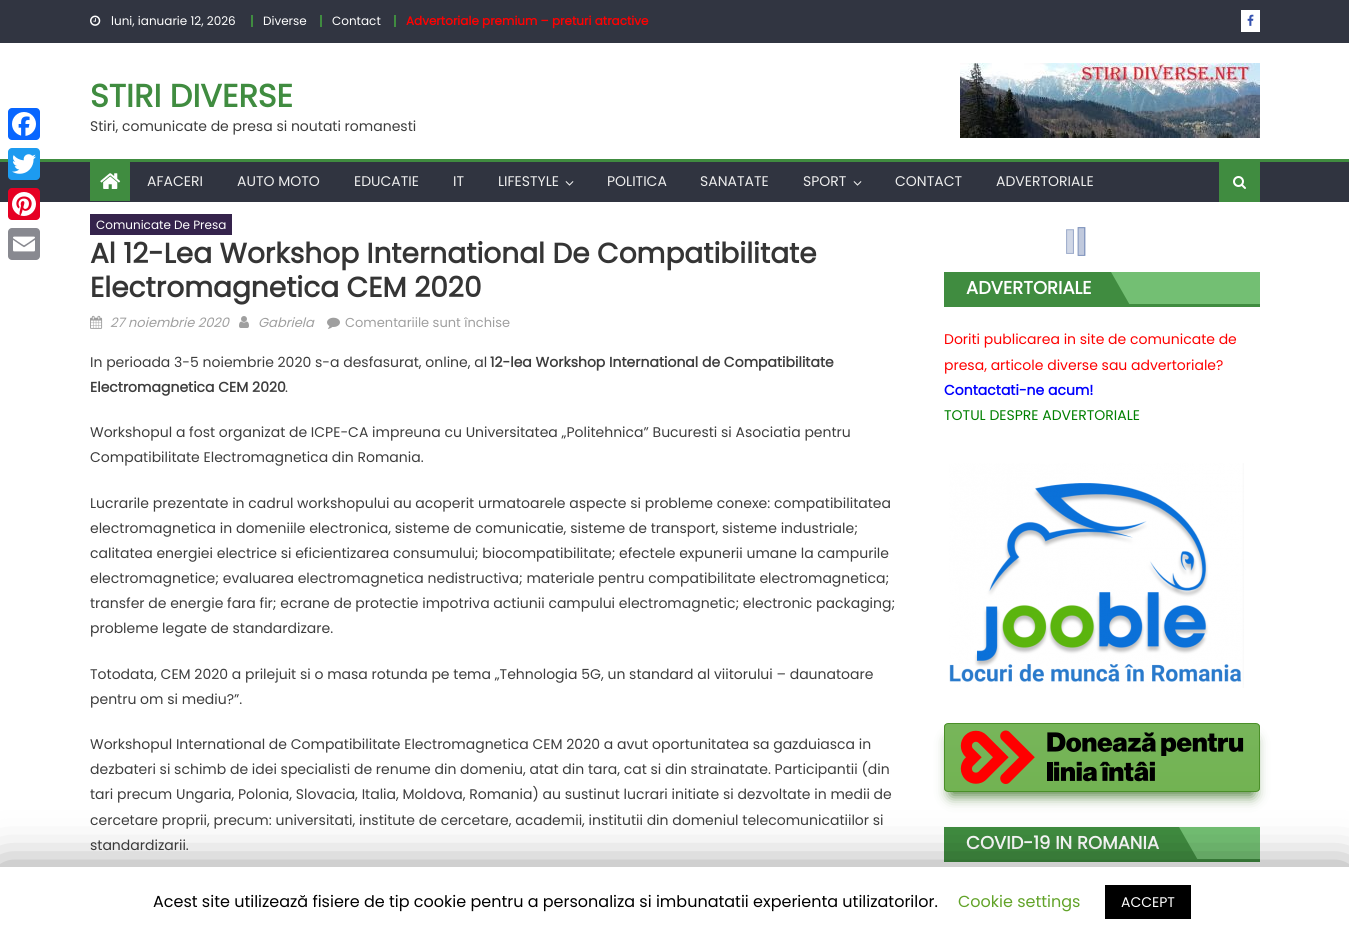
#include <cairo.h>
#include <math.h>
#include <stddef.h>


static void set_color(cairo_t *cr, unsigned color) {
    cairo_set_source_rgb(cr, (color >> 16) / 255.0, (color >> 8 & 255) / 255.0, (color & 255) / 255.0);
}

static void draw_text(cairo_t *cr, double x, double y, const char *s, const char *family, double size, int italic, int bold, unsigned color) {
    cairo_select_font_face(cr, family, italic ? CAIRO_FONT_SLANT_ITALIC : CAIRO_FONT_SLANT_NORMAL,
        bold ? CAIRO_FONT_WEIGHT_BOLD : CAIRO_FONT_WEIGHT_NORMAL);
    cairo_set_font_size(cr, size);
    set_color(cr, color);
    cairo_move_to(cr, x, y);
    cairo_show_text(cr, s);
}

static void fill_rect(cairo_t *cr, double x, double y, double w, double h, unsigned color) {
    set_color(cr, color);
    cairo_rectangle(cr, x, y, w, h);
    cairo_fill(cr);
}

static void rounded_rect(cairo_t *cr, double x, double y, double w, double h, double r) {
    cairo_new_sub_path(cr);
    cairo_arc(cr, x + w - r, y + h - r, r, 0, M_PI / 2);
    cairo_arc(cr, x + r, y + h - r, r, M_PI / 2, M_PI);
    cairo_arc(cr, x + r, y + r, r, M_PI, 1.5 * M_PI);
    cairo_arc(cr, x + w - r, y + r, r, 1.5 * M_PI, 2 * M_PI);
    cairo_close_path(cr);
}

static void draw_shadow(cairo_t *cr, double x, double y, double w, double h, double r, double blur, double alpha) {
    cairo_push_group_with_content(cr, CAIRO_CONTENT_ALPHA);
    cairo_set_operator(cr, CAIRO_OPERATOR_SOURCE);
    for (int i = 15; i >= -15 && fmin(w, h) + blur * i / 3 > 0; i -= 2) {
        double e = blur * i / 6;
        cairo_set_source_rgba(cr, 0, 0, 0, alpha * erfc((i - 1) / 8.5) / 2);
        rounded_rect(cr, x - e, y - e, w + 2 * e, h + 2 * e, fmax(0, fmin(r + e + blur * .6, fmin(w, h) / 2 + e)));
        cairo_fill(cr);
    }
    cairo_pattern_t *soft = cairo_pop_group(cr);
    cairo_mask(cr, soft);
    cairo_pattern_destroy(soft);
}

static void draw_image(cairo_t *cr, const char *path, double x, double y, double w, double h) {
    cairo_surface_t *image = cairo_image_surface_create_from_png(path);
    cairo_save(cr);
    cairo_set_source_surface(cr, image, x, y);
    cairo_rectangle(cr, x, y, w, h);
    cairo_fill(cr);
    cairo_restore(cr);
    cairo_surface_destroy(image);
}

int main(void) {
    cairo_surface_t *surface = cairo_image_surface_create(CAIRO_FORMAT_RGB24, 1349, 937);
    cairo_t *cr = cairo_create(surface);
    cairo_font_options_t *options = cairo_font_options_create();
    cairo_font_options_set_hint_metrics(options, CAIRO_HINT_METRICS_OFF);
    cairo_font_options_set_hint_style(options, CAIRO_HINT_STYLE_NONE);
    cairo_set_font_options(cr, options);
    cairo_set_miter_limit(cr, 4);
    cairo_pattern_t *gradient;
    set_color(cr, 0xFFFFFF);
    cairo_paint(cr);
    set_color(cr, 0x0866FF);
    rounded_rect(cr, 8, 108, 32, 32, 4);
    cairo_fill(cr);
    draw_image(cr, "assets/img1.png", 12, 112, 24, 24);
    fill_rect(cr, 0, 162, 1349, 40, 0x303440);
    fill_rect(cr, 0, 159, 1349, 3, 0x408C40);
    set_color(cr, 0x1D9BF0);
    rounded_rect(cr, 8, 148, 32, 32, 4);
    cairo_fill(cr);
    draw_image(cr, "assets/img2.png", 12, 154, 24, 20);
    set_color(cr, 0xE60023);
    rounded_rect(cr, 8, 188, 32, 32, 4);
    cairo_fill(cr);
    draw_image(cr, "assets/img3.png", 12, 192, 24, 24);
    set_color(cr, 0x888990);
    rounded_rect(cr, 8, 228, 32, 32, 4);
    cairo_fill(cr);
    draw_image(cr, "assets/img4.png", 13, 236, 22, 16);
    fill_rect(cr, 0, 0, 1349, 43, 0x313541);
    draw_image(cr, "assets/img5.png", 90, 15, 11, 11);
    draw_text(cr, 111, 25, "luni, ianuarie 12, 2026", "Poppins", 12, 0, 0, 0xFFFFFF);
    fill_rect(cr, 251, 15, 2, 12, 0x408C40);
    draw_text(cr, 263, 25, "Diverse", "Poppins", 12, 0, 0, 0xFFFFFF);
    fill_rect(cr, 320, 15, 2, 12, 0x408C40);
    draw_text(cr, 332, 25, "Contact", "Poppins", 12, 0, 0, 0xFFFFFF);
    fill_rect(cr, 394, 15, 2, 12, 0x408C40);
    draw_text(cr, 406, 25, "Advertoriale premium – preturi atractive", "Poppins", 12, 0, 1, 0xFF0000);
    fill_rect(cr, 1241, 10, 19, 22, 0xFFFFFF);
    draw_image(cr, "assets/img6.png", 1247, 14, 7, 12);
    draw_text(cr, 90, 107, "STIRI DIVERSE", "Poppins", 32, 0, 1, 0x408C40);
    draw_text(cr, 90, 131, "Stiri, comunicate de presa si noutati romanesti", "Poppins", 14, 0, 0, 0x3D3D3D);
    draw_image(cr, "assets/img7.png", 960, 63, 300, 75);
    fill_rect(cr, 90, 162, 40, 39, 0x408C40);
    draw_image(cr, "assets/img8.png", 100, 173, 21, 16);
    draw_text(cr, 147, 186, "AFACERI", "Poppins", 14, 0, 0, 0xEEEEEE);
    draw_text(cr, 237, 186, "AUTO MOTO", "Poppins", 14, 0, 0, 0xEEEEEE);
    draw_text(cr, 354, 186, "EDUCATIE", "Poppins", 14, 0, 0, 0xEEEEEE);
    draw_text(cr, 453, 186, "IT", "Poppins", 14, 0, 0, 0xEEEEEE);
    draw_text(cr, 498, 186, "LIFESTYLE", "Poppins", 14, 0, 0, 0xEEEEEE);
    draw_image(cr, "assets/img9.png", 565, 181, 9, 5);
    draw_text(cr, 607, 186, "POLITICA", "Poppins", 14, 0, 0, 0xEEEEEE);
    draw_text(cr, 700, 186, "SANATATE", "Poppins", 14, 0, 0, 0xEEEEEE);
    draw_text(cr, 803, 186, "SPORT", "Poppins", 14, 0, 0, 0xEEEEEE);
    draw_image(cr, "assets/img9.png", 853, 181, 9, 5);
    draw_text(cr, 895, 186, "CONTACT", "Poppins", 14, 0, 0, 0xEEEEEE);
    draw_text(cr, 996, 186, "ADVERTORIALE", "Poppins", 14, 0, 0, 0xEEEEEE);
    fill_rect(cr, 1219, 162, 41, 40, 0x408C40);
    draw_image(cr, "assets/img10.png", 1233, 176, 13, 13);
    fill_rect(cr, 90, 214, 142, 21, 0x35234C);
    draw_text(cr, 96, 229, "Comunicate De Presa", "Poppins", 12, 0, 0, 0xFFFFFF);
    draw_text(cr, 90, 263, "Al 12-Lea Workshop International De Compatibilitate", "Poppins", 28, 0, 1, 0x353535);
    draw_text(cr, 90, 297, "Electromagnetica CEM 2020", "Poppins", 28, 0, 1, 0x353535);
    draw_image(cr, "assets/img11.png", 90, 315, 13, 14);
    draw_text(cr, 110, 327, "27 noiembrie 2020", "Poppins", 13, 1, 0, 0x9F9F9F);
    draw_image(cr, "assets/img12.png", 239, 316, 10, 12);
    draw_text(cr, 258, 327, "Gabriela", "Poppins", 13, 1, 0, 0x9F9F9F);
    draw_image(cr, "assets/img13.png", 327, 317, 13, 12);
    draw_text(cr, 345, 327, "Comentariile sunt închise", "Poppins", 13, 0, 0, 0x9F9F9F);
    draw_text(cr, 90, 367, "In perioada 3-5 noiembrie 2020 s-a desfasurat, online, al", "Poppins", 14, 0, 0, 0x3D3D3D);
    draw_text(cr, 490, 367, "12-lea Workshop International de Compatibilitate", "Poppins", 14, 0, 1, 0x3D3D3D);
    draw_text(cr, 90, 392, "Electromagnetica CEM 2020", "Poppins", 14, 0, 1, 0x3D3D3D);
    draw_text(cr, 285, 392, ".", "Poppins", 14, 0, 0, 0x3D3D3D);
    draw_text(cr, 90, 437, "Workshopul a fost organizat de ICPE-CA impreuna cu Universitatea „Politehnica” Bucuresti si Asociatia pentru", "Poppins", 14, 0, 0, 0x3D3D3D);
    draw_text(cr, 90, 462, "Compatibilitate Electromagnetica din Romania.", "Poppins", 14, 0, 0, 0x3D3D3D);
    draw_text(cr, 90, 508, "Lucrarile prezentate in cadrul workshopului au acoperit urmatoarele aspecte si probleme conexe: compatibilitatea", "Poppins", 14, 0, 0, 0x3D3D3D);
    draw_text(cr, 90, 533, "electromagnetica in domeniile electronica, sisteme de comunicatie, sisteme de transport, sisteme industriale;", "Poppins", 14, 0, 0, 0x3D3D3D);
    draw_text(cr, 90, 558, "calitatea energiei electrice si eficientizarea consumului; biocompatibilitate; efectele expunerii umane la campurile", "Poppins", 14, 0, 0, 0x3D3D3D);
    draw_text(cr, 90, 583, "electromagnetice; evaluarea electromagnetica nedistructiva; materiale pentru compatibilitate electromagnetica;", "Poppins", 14, 0, 0, 0x3D3D3D);
    draw_text(cr, 90, 608, "transfer de energie fara fir; ecrane de protectie impotriva actiunii campului electromagnetic; electronic packaging;", "Poppins", 14, 0, 0, 0x3D3D3D);
    draw_text(cr, 90, 633, "probleme legate de standardizare.", "Poppins", 14, 0, 0, 0x3D3D3D);
    draw_text(cr, 90, 679, "Totodata, CEM 2020 a prilejuit si o masa rotunda pe tema „Tehnologia 5G, un standard al viitorului – daunatoare", "Poppins", 14, 0, 0, 0x3D3D3D);
    draw_text(cr, 90, 704, "pentru om si mediu?”.", "Poppins", 14, 0, 0, 0x3D3D3D);
    draw_text(cr, 90, 749, "Workshopul International de Compatibilitate Electromagnetica CEM 2020 a avut oportunitatea sa gazduiasca in", "Poppins", 14, 0, 0, 0x3D3D3D);
    draw_text(cr, 90, 774, "dezbateri si schimb de idei specialisti de renume din domeniu, atat din tara, cat si din strainatate. Participantii (din", "Poppins", 14, 0, 0, 0x3D3D3D);
    draw_text(cr, 90, 799, "tari precum Ungaria, Polonia, Slovacia, Italia, Moldova, Romania) au sustinut lucrari initiate si dezvoltate in medii de", "Poppins", 14, 0, 0, 0x3D3D3D);
    draw_text(cr, 90, 825, "cercetare proprii, precum: universitati, institute de cercetare, academii, institutii din domeniul telecomunicatiilor si", "Poppins", 14, 0, 0, 0x3D3D3D);
    draw_text(cr, 90, 850, "standardizarii.", "Poppins", 14, 0, 0, 0x3D3D3D);
    draw_image(cr, "assets/img14.png", 1066, 227, 20, 29);
    fill_rect(cr, 1111, 272, 149, 32, 0x73BF73);
    fill_rect(cr, 944, 304, 316, 3, 0x408C40);
    fill_rect(cr, 944, 272, 2, 35, 0x408C40);
    fill_rect(cr, 946, 272, 165, 32, 0x408C40);
    draw_text(cr, 966, 294, "ADVERTORIALE", "Poppins", 18, 0, 1, 0xFFFFFF);
    set_color(cr, 0x408C40);
    cairo_new_path(cr);
    cairo_move_to(cr, 1131, 307);
    cairo_line_to(cr, 1111, 307);
    cairo_line_to(cr, 1111, 272);
    cairo_close_path(cr);
    cairo_fill(cr);
    draw_text(cr, 944, 344, "Doriti publicarea in site de comunicate de", "Poppins", 14, 0, 0, 0xFF0000);
    draw_text(cr, 944, 370, "presa, articole diverse sau advertoriale?", "Poppins", 14, 0, 0, 0xFF0000);
    draw_text(cr, 944, 395, "Contactati-ne acum!", "Poppins", 14, 0, 1, 0x0000FF);
    draw_text(cr, 944, 420, "TOTUL DESPRE ADVERTORIALE", "Poppins", 14, 0, 0, 0x008000);
    draw_image(cr, "assets/img15.png", 949, 463, 295, 225);
    set_color(cr, 0x3E7327);
    draw_shadow(cr, 951, 740, 302, 55, 0, 7, 1);
    cairo_save(cr);
    rounded_rect(cr, 944, 723, 316, 69, 4);
    cairo_clip(cr);
    gradient = cairo_pattern_create_linear(1102, 724, 1102, 791);
    cairo_pattern_add_color_stop_rgba(gradient, 0.05, 0.467, 0.71, 0.353, 1);
    cairo_pattern_add_color_stop_rgba(gradient, 1, 0.447, 0.702, 0.322, 1);
    cairo_set_source(cr, gradient);
    cairo_pattern_destroy(gradient);
    cairo_rectangle(cr, 944, 724, 316, 67);
    cairo_fill(cr);
    cairo_restore(cr);
    rounded_rect(cr, 944.5, 723.5, 315, 68, 3.5);
    set_color(cr, 0x4B8F29);
    cairo_set_line_width(cr, 1);
    cairo_stroke(cr);
    draw_image(cr, "assets/img16.png", 960, 730, 284, 54);
    fill_rect(cr, 1179, 827, 81, 32, 0x73BF73);
    fill_rect(cr, 944, 859, 316, 3, 0x408C40);
    fill_rect(cr, 944, 827, 2, 35, 0x408C40);
    fill_rect(cr, 946, 827, 233, 32, 0x408C40);
    draw_text(cr, 966, 849, "COVID-19 IN ROMANIA", "Poppins", 18, 0, 1, 0xFFFFFF);
    set_color(cr, 0x408C40);
    cairo_new_path(cr);
    cairo_move_to(cr, 1199, 862);
    cairo_line_to(cr, 1179, 862);
    cairo_line_to(cr, 1179, 827);
    cairo_close_path(cr);
    cairo_fill(cr);
    set_color(cr, 0x000000);
    draw_shadow(cr, 0, 872, 1349, 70, 0, 25, 0.5);
    fill_rect(cr, 0, 867, 1349, 70, 0xFFFFFF);
    draw_text(cr, 153, 907, "Acest site utilizează fisiere de tip cookie pentru a personaliza si imbunatatii experienta utilizatorilor.", "Poppins", 16, 0, 0, 0x000000);
    draw_text(cr, 958, 907, "Cookie settings", "Poppins", 16, 0, 0, 0x62A329);
    fill_rect(cr, 1105, 885, 86, 34, 0x000000);
    draw_text(cr, 1121, 907, "ACCEPT", "Poppins", 14, 0, 0, 0xFFFFFF);
    cairo_surface_write_to_png(surface, "output.png");
    cairo_font_options_destroy(options);
    cairo_destroy(cr);
    cairo_surface_destroy(surface);
    return 0;
}
